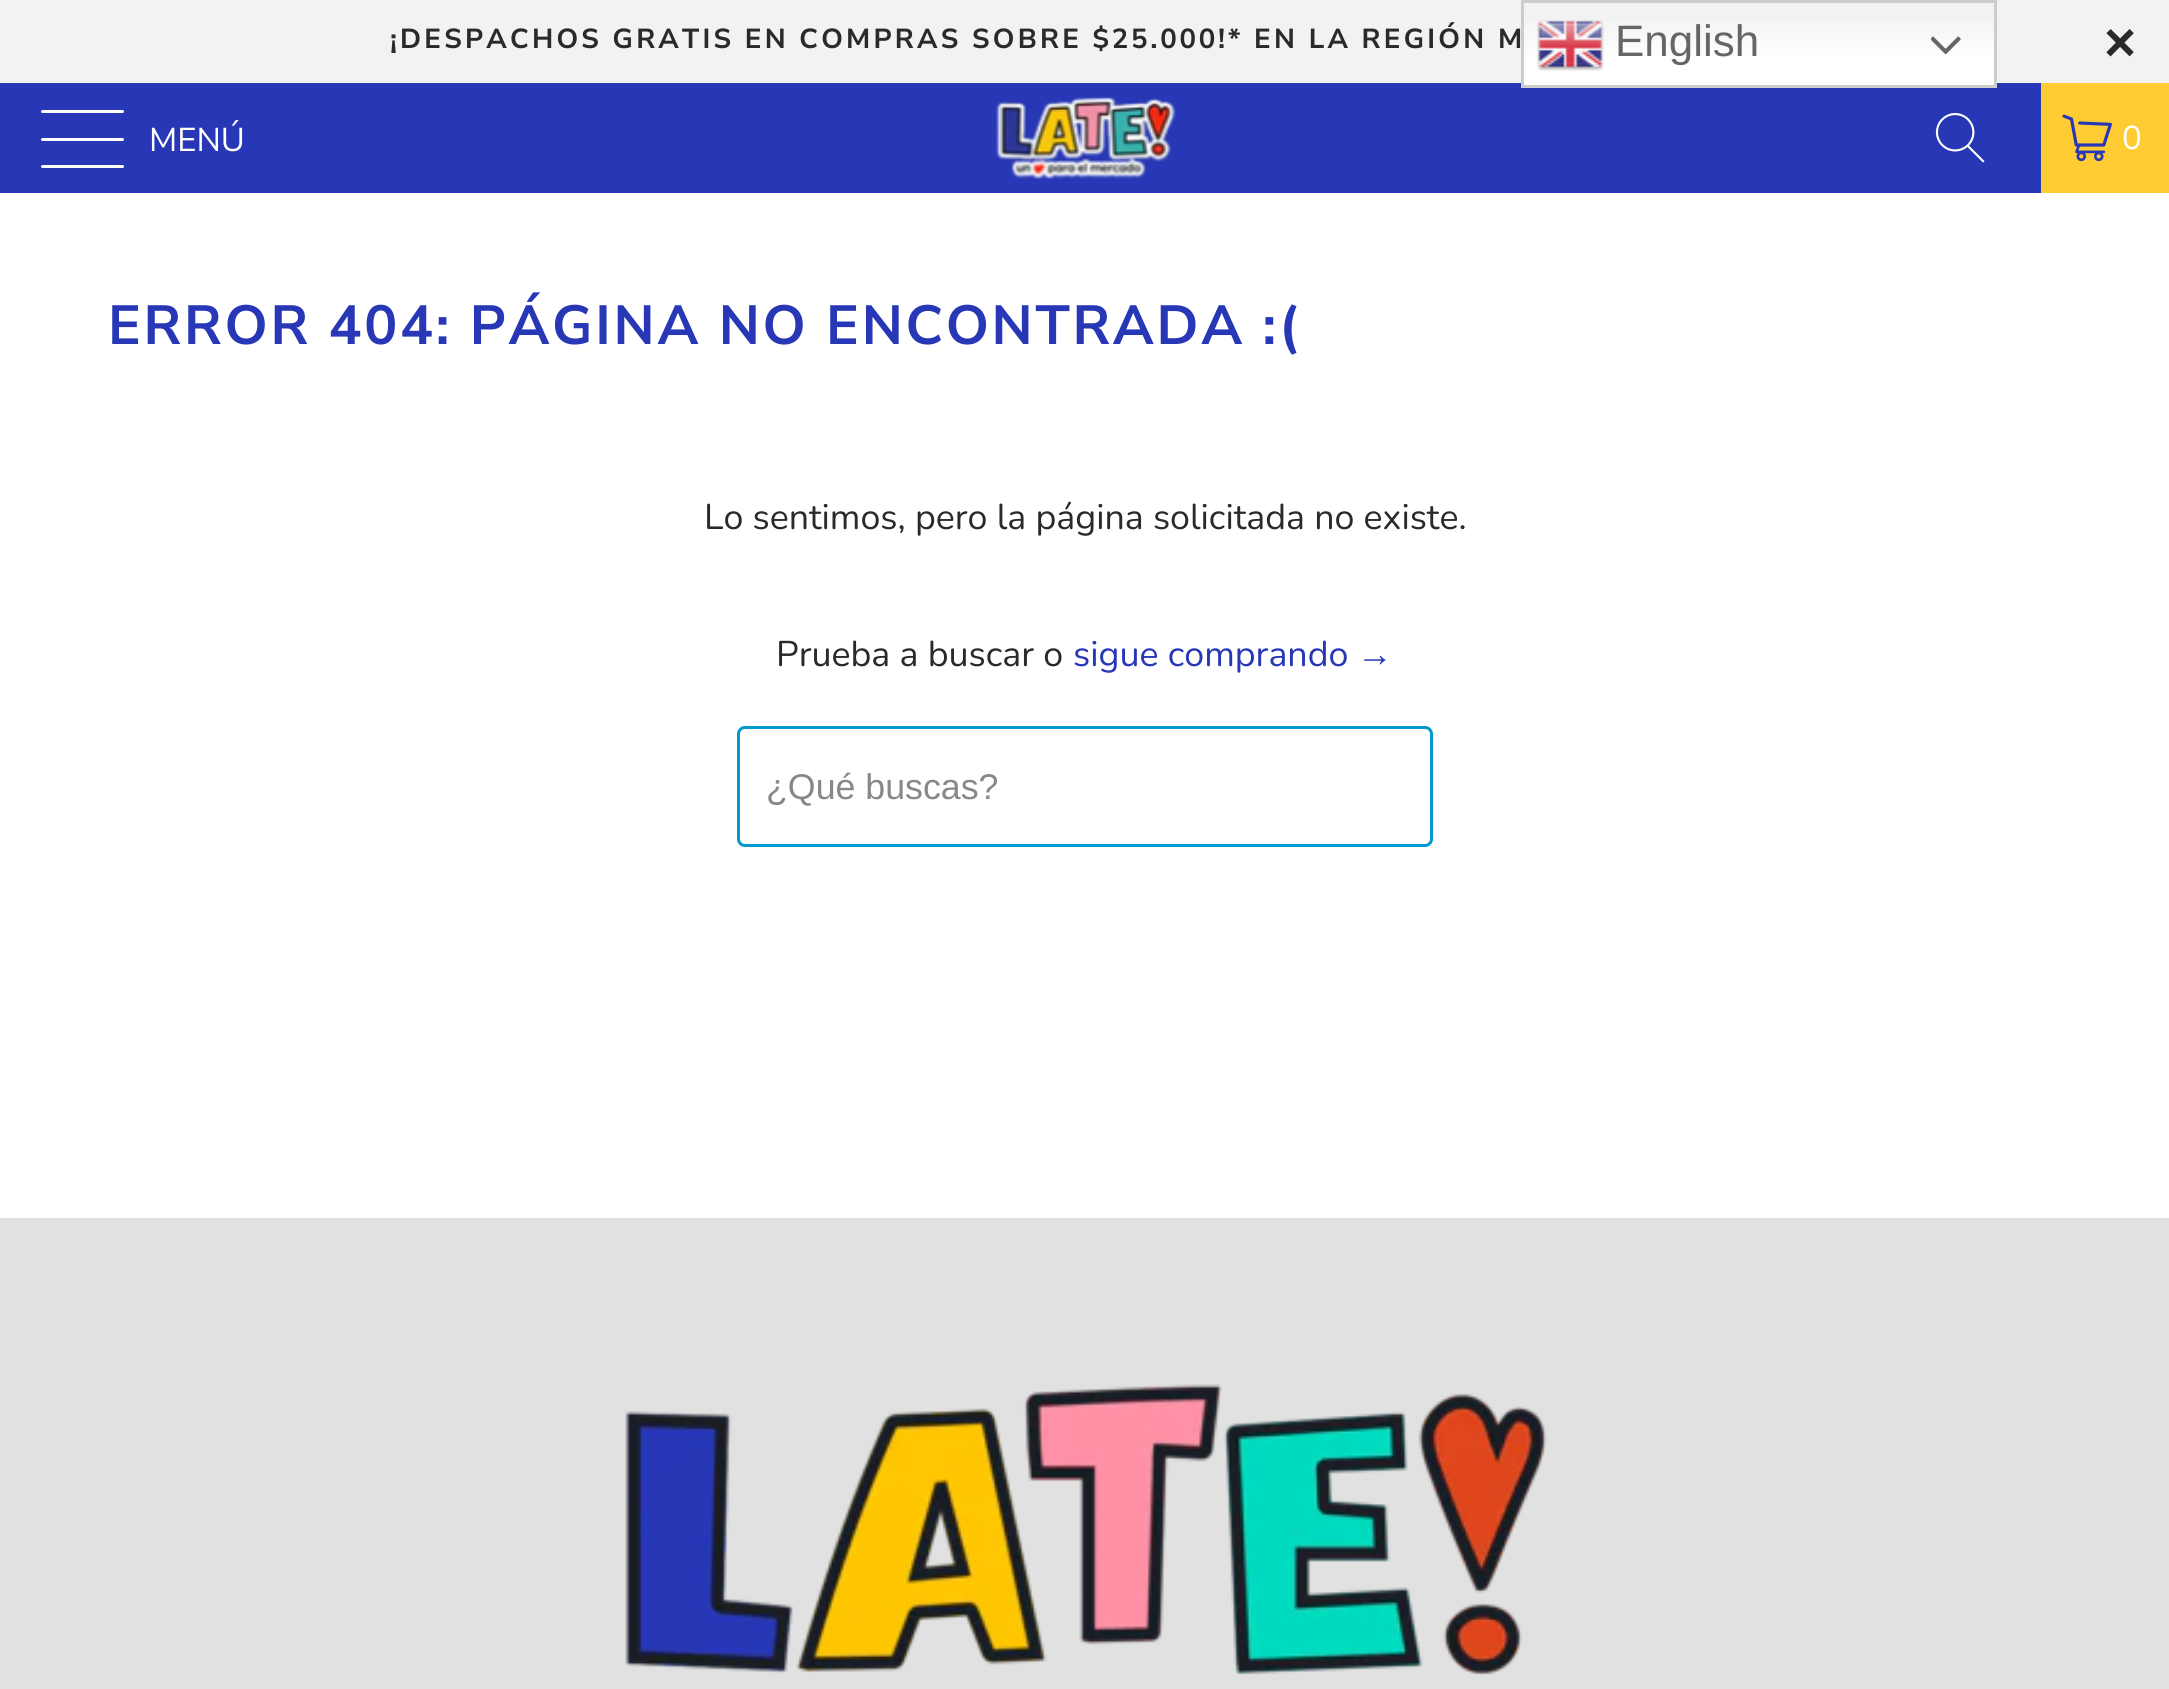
#include <cairo.h>
#include <math.h>
#include <stddef.h>


static void set_color(cairo_t *cr, unsigned color) {
    cairo_set_source_rgb(cr, (color >> 16) / 255.0, (color >> 8 & 255) / 255.0, (color & 255) / 255.0);
}

static void draw_text(cairo_t *cr, double x, double y, const char *s, const char *family, double size, int italic, int bold, unsigned color) {
    cairo_select_font_face(cr, family, italic ? CAIRO_FONT_SLANT_ITALIC : CAIRO_FONT_SLANT_NORMAL,
        bold ? CAIRO_FONT_WEIGHT_BOLD : CAIRO_FONT_WEIGHT_NORMAL);
    cairo_set_font_size(cr, size);
    set_color(cr, color);
    cairo_move_to(cr, x, y);
    cairo_show_text(cr, s);
}

static void draw_spaced(cairo_t *cr, double x, double y, const char *s, double letter, double word) {
    cairo_move_to(cr, x, y);
    while (*s) {
        char ch[5] = {0};
        int n = 0;
        do ch[n++] = *s++; while ((*s & 0xC0) == 0x80);
        cairo_show_text(cr, ch);
        cairo_rel_move_to(cr, letter + word * (*ch == ' '), 0);
    }
}

static void fill_rect(cairo_t *cr, double x, double y, double w, double h, unsigned color) {
    set_color(cr, color);
    cairo_rectangle(cr, x, y, w, h);
    cairo_fill(cr);
}

static void rounded_rect(cairo_t *cr, double x, double y, double w, double h, double r) {
    cairo_new_sub_path(cr);
    cairo_arc(cr, x + w - r, y + h - r, r, 0, M_PI / 2);
    cairo_arc(cr, x + r, y + h - r, r, M_PI / 2, M_PI);
    cairo_arc(cr, x + r, y + r, r, M_PI, 1.5 * M_PI);
    cairo_arc(cr, x + w - r, y + r, r, 1.5 * M_PI, 2 * M_PI);
    cairo_close_path(cr);
}

static void draw_image(cairo_t *cr, const char *path, double x, double y, double w, double h) {
    cairo_surface_t *image = cairo_image_surface_create_from_png(path);
    cairo_save(cr);
    cairo_set_source_surface(cr, image, x, y);
    cairo_rectangle(cr, x, y, w, h);
    cairo_fill(cr);
    cairo_restore(cr);
    cairo_surface_destroy(image);
}

int main(void) {
    cairo_surface_t *surface = cairo_image_surface_create(CAIRO_FORMAT_RGB24, 2169, 1689);
    cairo_t *cr = cairo_create(surface);
    cairo_font_options_t *options = cairo_font_options_create();
    cairo_font_options_set_hint_metrics(options, CAIRO_HINT_METRICS_OFF);
    cairo_font_options_set_hint_style(options, CAIRO_HINT_STYLE_NONE);
    cairo_set_font_options(cr, options);
    cairo_set_miter_limit(cr, 4);
    cairo_pattern_t *gradient;
    set_color(cr, 0xFFFFFF);
    cairo_paint(cr);
    fill_rect(cr, 0, 0, 2169, 83, 0xF2F2F2);
    cairo_select_font_face(cr, "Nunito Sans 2", CAIRO_FONT_SLANT_NORMAL, CAIRO_FONT_WEIGHT_BOLD);
    cairo_set_font_size(cr, 27.5);
    set_color(cr, 0x2B2A2A);
    draw_spaced(cr, 390, 48, "¡DESPACHOS GRATIS EN COMPRAS SOBRE $25.000!* EN LA REGIÓN M", 2.75, 0);
    cairo_select_font_face(cr, "Liberation Sans", CAIRO_FONT_SLANT_NORMAL, CAIRO_FONT_WEIGHT_BOLD);
    cairo_set_font_size(cr, 55);
    draw_spaced(cr, 2104, 61, "×", 2.75, 0);
    fill_rect(cr, 0, 83, 2041, 110, 0x2737B6);
    set_color(cr, 0xFFFFFF);
    rounded_rect(cr, 41, 110, 83, 3, 1.5);
    cairo_fill(cr);
    rounded_rect(cr, 41, 138, 83, 3, 1.5);
    cairo_fill(cr);
    rounded_rect(cr, 41, 165, 83, 3, 1.5);
    cairo_fill(cr);
    draw_text(cr, 149, 151, "MENÚ", "Nunito Sans", 33, 0, 0, 0xFFFFFF);
    draw_image(cr, "assets/img1.png", 996, 96, 180, 83);
    draw_image(cr, "assets/img2.png", 1935, 113, 50, 50);
    fill_rect(cr, 2041, 83, 128, 110, 0xFFCC33);
    draw_image(cr, "assets/img3.png", 2062, 114, 50, 48);
    draw_text(cr, 2122, 149, "0", "Nunito Sans", 33, 0, 0, 0xFFFFFF);
    gradient = cairo_pattern_create_linear(1759, 0, 1759, 88);
    cairo_pattern_add_color_stop_rgba(gradient, 0, 0.937, 0.937, 0.937, 1);
    cairo_pattern_add_color_stop_rgba(gradient, 0.7, 1, 1, 1, 1);
    cairo_set_source(cr, gradient);
    cairo_pattern_destroy(gradient);
    cairo_rectangle(cr, 1524, 21, 470, 64);
    cairo_fill(cr);
    cairo_rectangle(cr, 1522.5, 1.5, 473, 85);
    set_color(cr, 0xCCCCCC);
    cairo_set_line_width(cr, 3);
    cairo_stroke(cr);
    draw_image(cr, "assets/img4.png", 1537, 20, 67, 51);
    draw_text(cr, 1615, 56, "English", "Liberation Sans", 44, 0, 0, 0x666666);
    draw_image(cr, "assets/img5.png", 1931, 36, 30, 19);
    cairo_select_font_face(cr, "Nunito Sans", CAIRO_FONT_SLANT_NORMAL, CAIRO_FONT_WEIGHT_BOLD);
    cairo_set_font_size(cr, 55);
    set_color(cr, 0x2737B6);
    draw_spaced(cr, 108, 344, "ERROR 404: PÁGINA NO ENCONTRADA :(", 2.75, 0);
    draw_text(cr, 704, 529, "Lo sentimos, pero la página solicitada no existe.", "Nunito", 35.75, 0, 0, 0x2B2A2A);
    draw_text(cr, 776, 666, "Prueba a buscar o", "Nunito", 35.75, 0, 0, 0x2B2A2A);
    draw_text(cr, 1073, 666, "sigue comprando", "Nunito", 35.75, 0, 0, 0x2737B6);
    draw_text(cr, 1357, 666, "→", "Liberation Sans", 35.75, 0, 0, 0x2737B6);
    rounded_rect(cr, 738.5, 727.5, 693, 118, 6.5);
    set_color(cr, 0x0099CC);
    cairo_stroke(cr);
    draw_text(cr, 766, 799, "¿Qué buscas?", "Liberation Sans", 35.75, 0, 0, 0x888888);
    fill_rect(cr, 0, 1218, 2169, 471, 0xE1E1E1);
    draw_image(cr, "assets/img6.png", 625, 1384, 922, 291);
    cairo_surface_write_to_png(surface, "output.png");
    cairo_font_options_destroy(options);
    cairo_destroy(cr);
    cairo_surface_destroy(surface);
    return 0;
}
